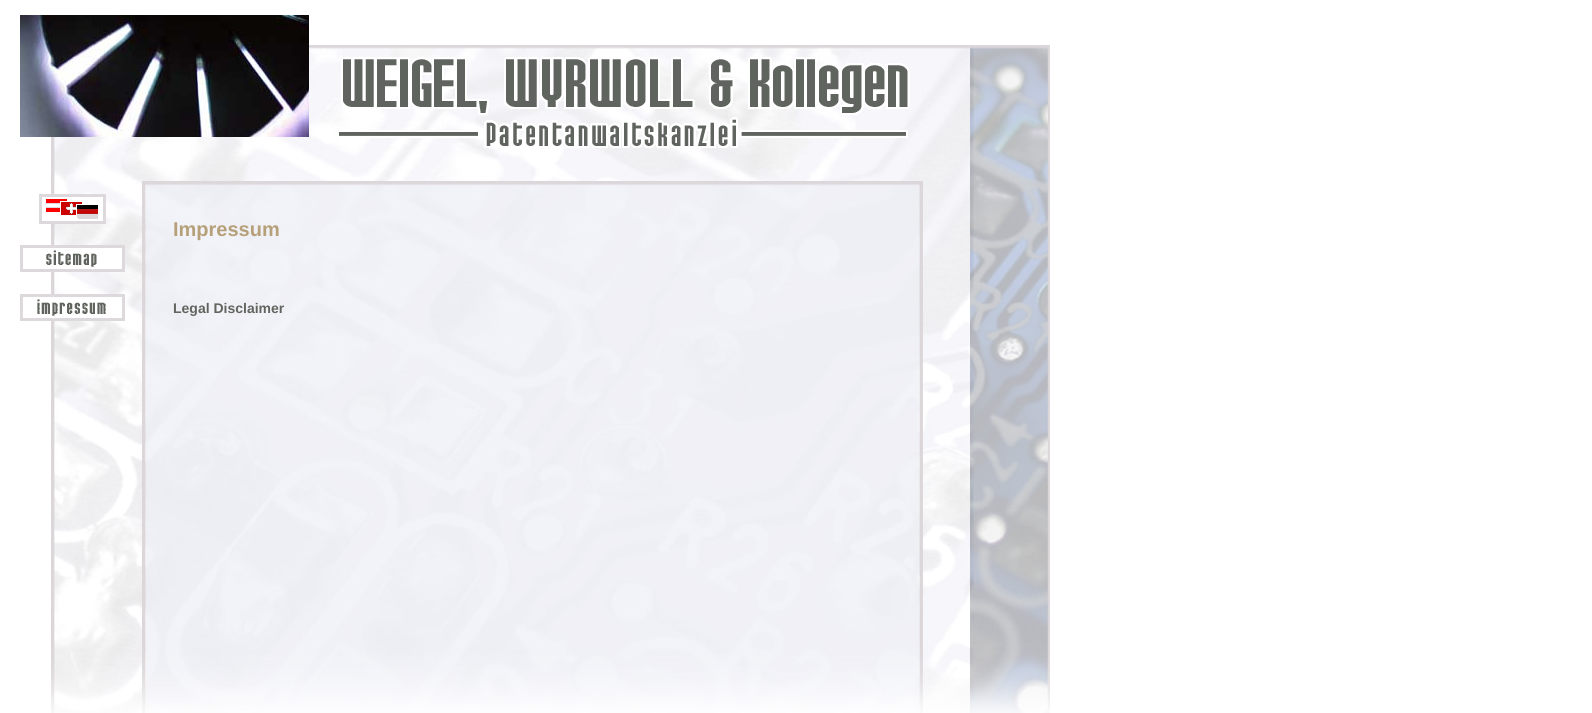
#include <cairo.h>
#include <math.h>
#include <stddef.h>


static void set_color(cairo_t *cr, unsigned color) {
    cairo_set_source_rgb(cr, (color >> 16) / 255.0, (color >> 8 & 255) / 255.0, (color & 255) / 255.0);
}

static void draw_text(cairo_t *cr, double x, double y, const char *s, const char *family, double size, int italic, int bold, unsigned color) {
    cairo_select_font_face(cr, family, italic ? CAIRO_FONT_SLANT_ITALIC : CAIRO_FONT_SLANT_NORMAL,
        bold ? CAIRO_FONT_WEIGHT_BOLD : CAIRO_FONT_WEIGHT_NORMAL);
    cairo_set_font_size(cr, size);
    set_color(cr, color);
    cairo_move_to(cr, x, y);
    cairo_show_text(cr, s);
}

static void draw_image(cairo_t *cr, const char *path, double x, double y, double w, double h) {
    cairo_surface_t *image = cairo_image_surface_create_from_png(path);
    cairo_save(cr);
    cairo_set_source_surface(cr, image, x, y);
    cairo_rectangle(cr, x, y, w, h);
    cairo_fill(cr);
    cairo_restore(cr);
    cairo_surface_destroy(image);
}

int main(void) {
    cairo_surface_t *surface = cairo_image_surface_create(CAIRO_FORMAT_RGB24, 1592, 713);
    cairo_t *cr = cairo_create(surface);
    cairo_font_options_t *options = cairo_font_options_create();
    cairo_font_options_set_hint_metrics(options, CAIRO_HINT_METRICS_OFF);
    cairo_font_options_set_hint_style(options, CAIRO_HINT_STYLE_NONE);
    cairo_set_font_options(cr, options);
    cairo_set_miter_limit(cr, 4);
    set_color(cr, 0xFFFFFF);
    cairo_paint(cr);
    draw_image(cr, "assets/img2.png", 51, 45, 999, 668);
    draw_image(cr, "assets/img1.png", 20, 15, 289, 122);
    draw_image(cr, "assets/img3.png", 339, 57, 571, 91);
    draw_image(cr, "assets/img4.png", 39, 194, 67, 30);
    draw_image(cr, "assets/img5.png", 20, 245, 105, 27);
    draw_image(cr, "assets/img6.png", 20, 294, 105, 27);
    draw_text(cr, 173, 236, "Impressum", "Liberation Sans", 20, 0, 1, 0xB6A079);
    draw_text(cr, 173, 313, "Legal Disclaimer", "Liberation Sans", 14, 0, 1, 0x62645F);
    cairo_surface_write_to_png(surface, "output.png");
    cairo_font_options_destroy(options);
    cairo_destroy(cr);
    cairo_surface_destroy(surface);
    return 0;
}
